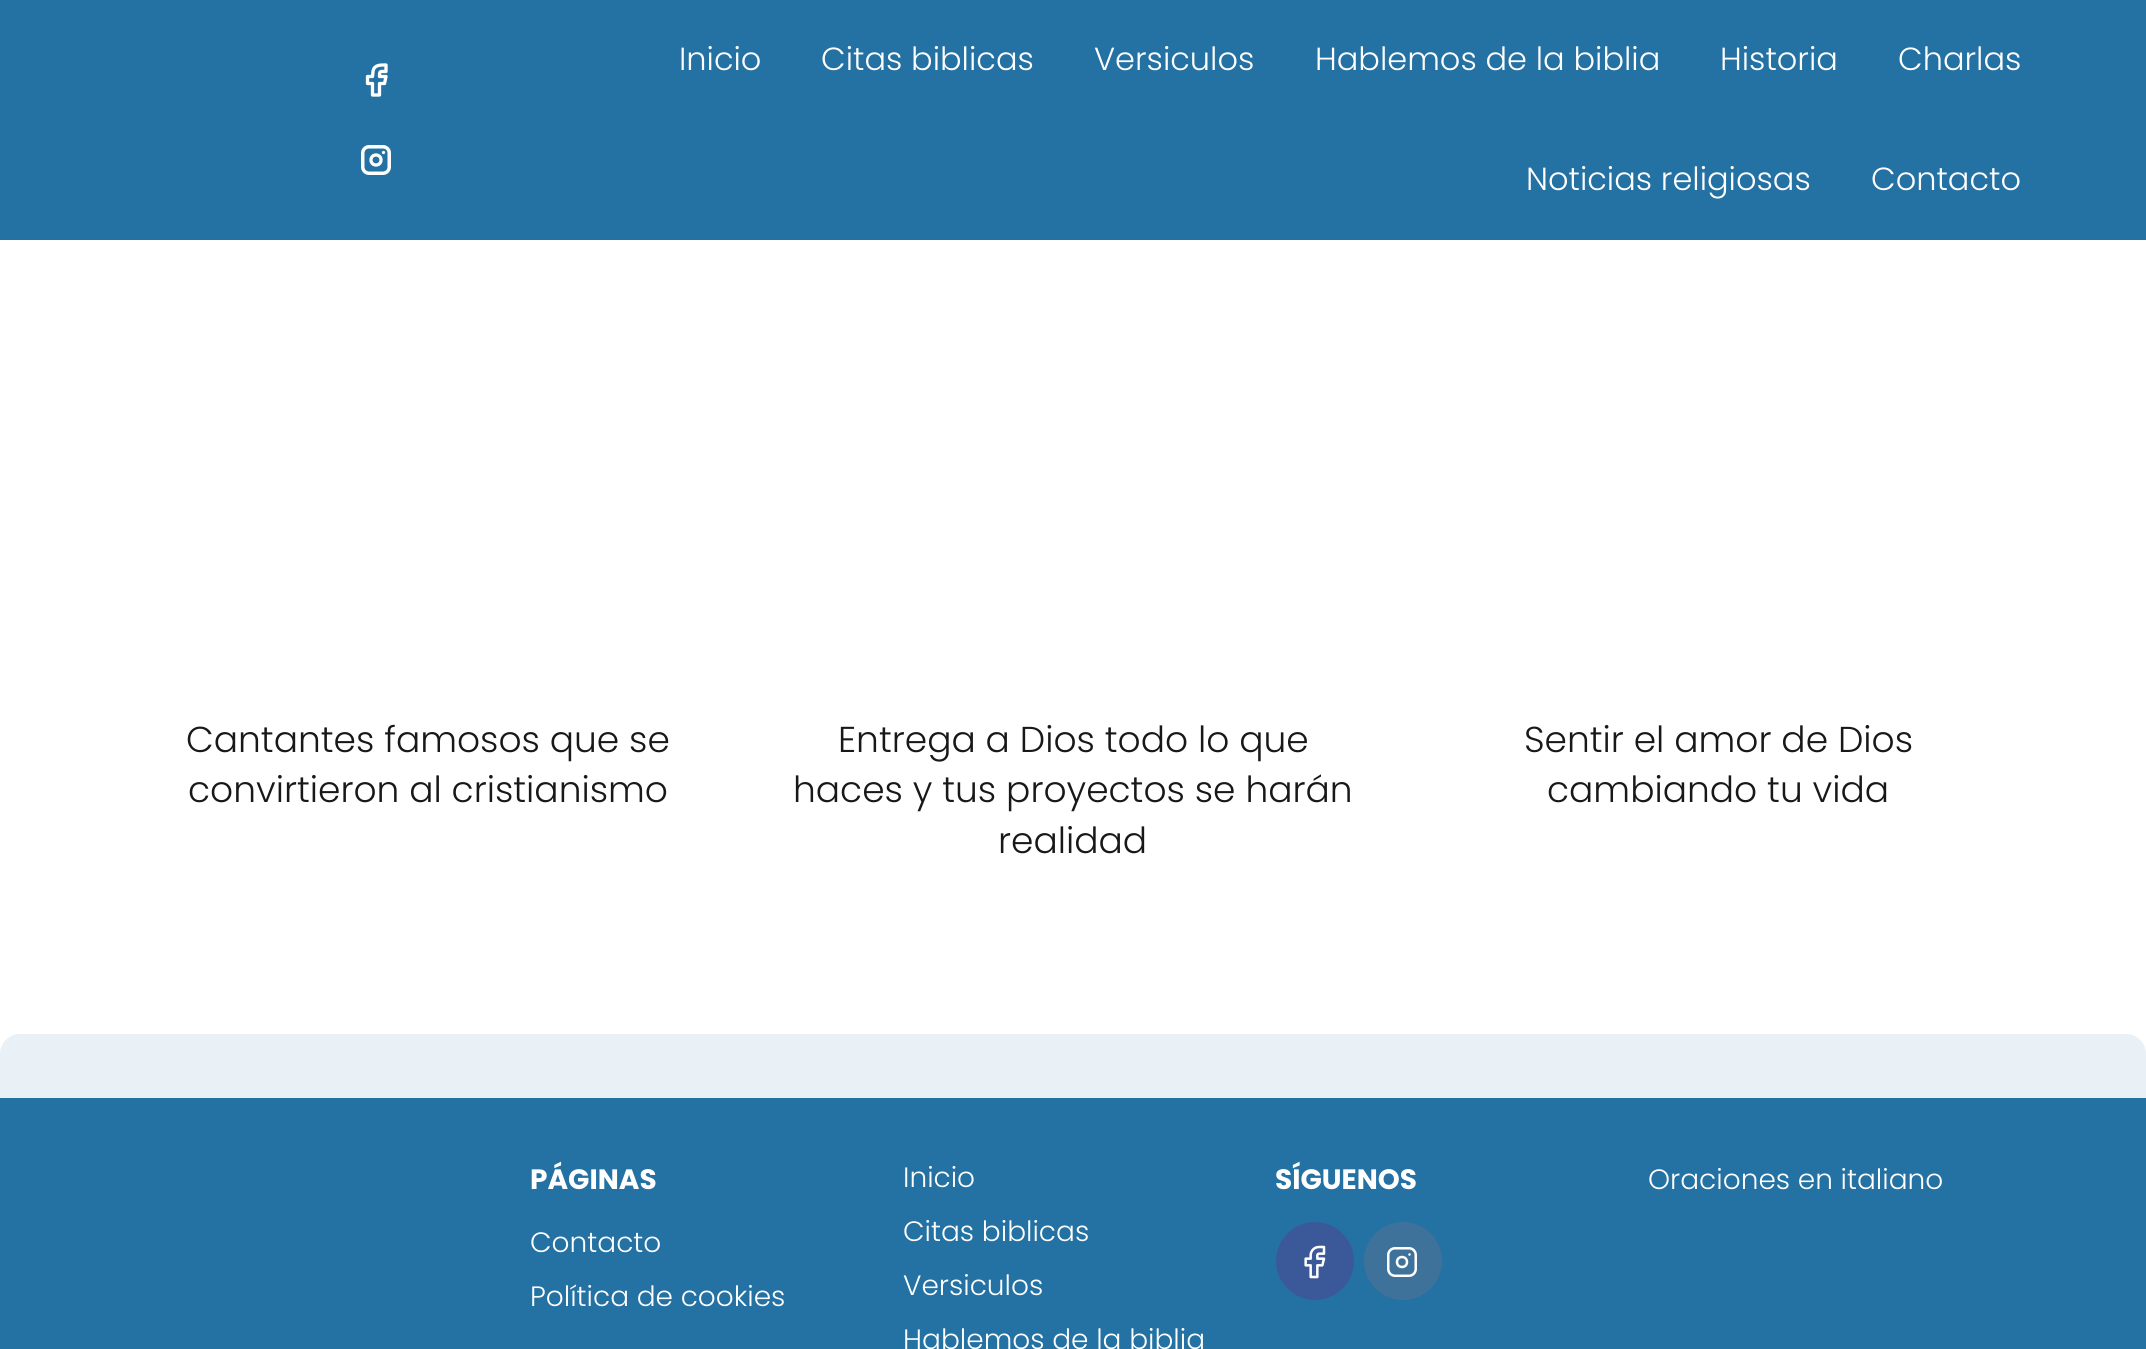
#include <cairo.h>
#include <math.h>
#include <stddef.h>


static void set_color(cairo_t *cr, unsigned color) {
    cairo_set_source_rgb(cr, (color >> 16) / 255.0, (color >> 8 & 255) / 255.0, (color & 255) / 255.0);
}

static void draw_text(cairo_t *cr, double x, double y, const char *s, const char *family, double size, int italic, int bold, unsigned color) {
    cairo_select_font_face(cr, family, italic ? CAIRO_FONT_SLANT_ITALIC : CAIRO_FONT_SLANT_NORMAL,
        bold ? CAIRO_FONT_WEIGHT_BOLD : CAIRO_FONT_WEIGHT_NORMAL);
    cairo_set_font_size(cr, size);
    set_color(cr, color);
    cairo_move_to(cr, x, y);
    cairo_show_text(cr, s);
}

static void fill_rect(cairo_t *cr, double x, double y, double w, double h, unsigned color) {
    set_color(cr, color);
    cairo_rectangle(cr, x, y, w, h);
    cairo_fill(cr);
}

static void rounded_rect(cairo_t *cr, double x, double y, double w, double h, double r) {
    cairo_new_sub_path(cr);
    cairo_arc(cr, x + w - r, y + h - r, r, 0, M_PI / 2);
    cairo_arc(cr, x + r, y + h - r, r, M_PI / 2, M_PI);
    cairo_arc(cr, x + r, y + r, r, M_PI, 1.5 * M_PI);
    cairo_arc(cr, x + w - r, y + r, r, 1.5 * M_PI, 2 * M_PI);
    cairo_close_path(cr);
}

static void draw_image(cairo_t *cr, const char *path, double x, double y, double w, double h) {
    cairo_surface_t *image = cairo_image_surface_create_from_png(path);
    cairo_save(cr);
    cairo_set_source_surface(cr, image, x, y);
    cairo_rectangle(cr, x, y, w, h);
    cairo_fill(cr);
    cairo_restore(cr);
    cairo_surface_destroy(image);
}

int main(void) {
    cairo_surface_t *surface = cairo_image_surface_create(CAIRO_FORMAT_RGB24, 2146, 1349);
    cairo_t *cr = cairo_create(surface);
    cairo_font_options_t *options = cairo_font_options_create();
    cairo_font_options_set_hint_metrics(options, CAIRO_HINT_METRICS_OFF);
    cairo_font_options_set_hint_style(options, CAIRO_HINT_STYLE_NONE);
    cairo_set_font_options(cr, options);
    cairo_set_miter_limit(cr, 4);
    set_color(cr, 0xFFFFFF);
    cairo_paint(cr);
    fill_rect(cr, 0, 0, 2146, 240, 0x2471A3);
    cairo_new_path(cr);
    cairo_move_to(cr, 367.5, 76.5);
    cairo_line_to(cr, 367.5, 83.5);
    cairo_line_to(cr, 372.5, 83.5);
    cairo_line_to(cr, 372.5, 95);
    cairo_line_to(cr, 379.5, 95);
    cairo_line_to(cr, 379.5, 83.5);
    cairo_line_to(cr, 384.5, 83.5);
    cairo_line_to(cr, 386, 76.5);
    cairo_line_to(cr, 379.5, 76.5);
    cairo_curve_to(cr, 379.5, 70.5, 380, 71.5, 386, 71.5);
    cairo_line_to(cr, 386, 65);
    cairo_curve_to(cr, 380.5, 65, 374, 64.5, 373, 71.5);
    cairo_line_to(cr, 372.5, 76.5);
    cairo_line_to(cr, 367.5, 76.5);
    set_color(cr, 0xFFFFFF);
    cairo_set_line_width(cr, 3.3);
    cairo_set_line_cap(cr, CAIRO_LINE_CAP_ROUND);
    cairo_set_line_join(cr, CAIRO_LINE_JOIN_ROUND);
    cairo_stroke(cr);
    rounded_rect(cr, 362.75, 146.75, 26.5, 26.5, 6.25);
    cairo_set_line_width(cr, 3.5);
    cairo_set_line_cap(cr, CAIRO_LINE_CAP_BUTT);
    cairo_set_line_join(cr, CAIRO_LINE_JOIN_MITER);
    cairo_stroke(cr);
    cairo_arc(cr, 376, 160, 5, 0, 2 * M_PI);
    cairo_set_line_width(cr, 3.3);
    cairo_stroke(cr);
    cairo_new_path(cr);
    cairo_move_to(cr, 383.5, 152.5);
    cairo_line_to(cr, 383.5, 152.5);
    cairo_set_line_cap(cr, CAIRO_LINE_CAP_ROUND);
    cairo_set_line_join(cr, CAIRO_LINE_JOIN_ROUND);
    cairo_stroke(cr);
    draw_text(cr, 679, 70, "Inicio", "Poppins Light", 32, 0, 0, 0xFFFFFF);
    draw_text(cr, 821, 70, "Citas biblicas", "Poppins Light", 32, 0, 0, 0xFFFFFF);
    draw_text(cr, 1094, 70, "Versiculos", "Poppins Light", 32, 0, 0, 0xFFFFFF);
    draw_text(cr, 1315, 70, "Hablemos de la biblia", "Poppins Light", 32, 0, 0, 0xFFFFFF);
    draw_text(cr, 1720, 70, "Historia", "Poppins Light", 32, 0, 0, 0xFFFFFF);
    draw_text(cr, 1898, 70, "Charlas", "Poppins Light", 32, 0, 0, 0xFFFFFF);
    draw_text(cr, 1526, 190, "Noticias religiosas", "Poppins Light", 32, 0, 0, 0xFFFFFF);
    draw_text(cr, 1871, 190, "Contacto", "Poppins Light", 32, 0, 0, 0xFFFFFF);
    draw_text(cr, 186, 752, "Cantantes famosos que se", "Poppins Light", 36, 0, 0, 0x181818);
    draw_text(cr, 188, 802, "convirtieron al cristianismo", "Poppins Light", 36, 0, 0, 0x181818);
    draw_text(cr, 838, 752, "Entrega a Dios todo lo que", "Poppins Light", 36, 0, 0, 0x181818);
    draw_text(cr, 793, 802, "haces y tus proyectos se harán", "Poppins Light", 36, 0, 0, 0x181818);
    draw_text(cr, 998, 853, "realidad", "Poppins Light", 36, 0, 0, 0x181818);
    draw_text(cr, 1524, 752, "Sentir el amor de Dios", "Poppins Light", 36, 0, 0, 0x181818);
    draw_text(cr, 1547, 802, "cambiando tu vida", "Poppins Light", 36, 0, 0, 0x181818);
    set_color(cr, 0xEAF1F6);
    cairo_new_path(cr);
    cairo_move_to(cr, 20, 1034);
    cairo_line_to(cr, 2126, 1034);
    cairo_curve_to(cr, 2137, 1034, 2146, 1043, 2146, 1054);
    cairo_line_to(cr, 2146, 1098);
    cairo_line_to(cr, 0, 1098);
    cairo_line_to(cr, 0, 1054);
    cairo_curve_to(cr, 0, 1043, 9, 1034, 20, 1034);
    cairo_close_path(cr);
    cairo_fill(cr);
    fill_rect(cr, 0, 1098, 2146, 251, 0x2471A3);
    draw_text(cr, 530, 1189, "PÁGINAS", "Poppins", 28, 0, 1, 0xFFFFFF);
    draw_text(cr, 530, 1252, "Contacto", "Poppins Light", 28, 0, 0, 0xFFFFFF);
    draw_text(cr, 530, 1306, "Política de cookies", "Poppins Light", 28, 0, 0, 0xFFFFFF);
    draw_text(cr, 903, 1187, "Inicio", "Poppins Light", 28, 0, 0, 0xFFFFFF);
    draw_text(cr, 903, 1241, "Citas biblicas", "Poppins Light", 28, 0, 0, 0xFFFFFF);
    draw_text(cr, 903, 1295, "Versiculos", "Poppins Light", 28, 0, 0, 0xFFFFFF);
    draw_text(cr, 903, 1349, "Hablemos de la biblia", "Poppins Light", 28, 0, 0, 0xFFFFFF);
    draw_text(cr, 1275, 1189, "SÍGUENOS", "Poppins", 28, 0, 1, 0xFFFFFF);
    set_color(cr, 0x3B5998);
    cairo_new_path(cr);
    cairo_arc(cr, 1315, 1261, 39, 0, 2 * M_PI);
    cairo_fill(cr);
    draw_image(cr, "assets/img1.png", 1304, 1245, 22, 34);
    set_color(cr, 0x3F729B);
    cairo_arc(cr, 1403, 1261, 39, 0, 2 * M_PI);
    cairo_fill(cr);
    rounded_rect(cr, 1388.25, 1248.25, 27.5, 27.5, 6.75);
    set_color(cr, 0xFFFFFF);
    cairo_set_line_width(cr, 2.5);
    cairo_set_line_cap(cr, CAIRO_LINE_CAP_BUTT);
    cairo_set_line_join(cr, CAIRO_LINE_JOIN_MITER);
    cairo_stroke(cr);
    cairo_arc(cr, 1402, 1262, 5, 0, 2 * M_PI);
    cairo_stroke(cr);
    cairo_new_path(cr);
    cairo_move_to(cr, 1409.5, 1254.5);
    cairo_line_to(cr, 1409.5, 1254.5);
    cairo_set_line_cap(cr, CAIRO_LINE_CAP_ROUND);
    cairo_set_line_join(cr, CAIRO_LINE_JOIN_ROUND);
    cairo_stroke(cr);
    draw_text(cr, 1648, 1189, "Oraciones en italiano", "Poppins Light", 28, 0, 0, 0xFFFFFF);
    cairo_surface_write_to_png(surface, "output.png");
    cairo_font_options_destroy(options);
    cairo_destroy(cr);
    cairo_surface_destroy(surface);
    return 0;
}
